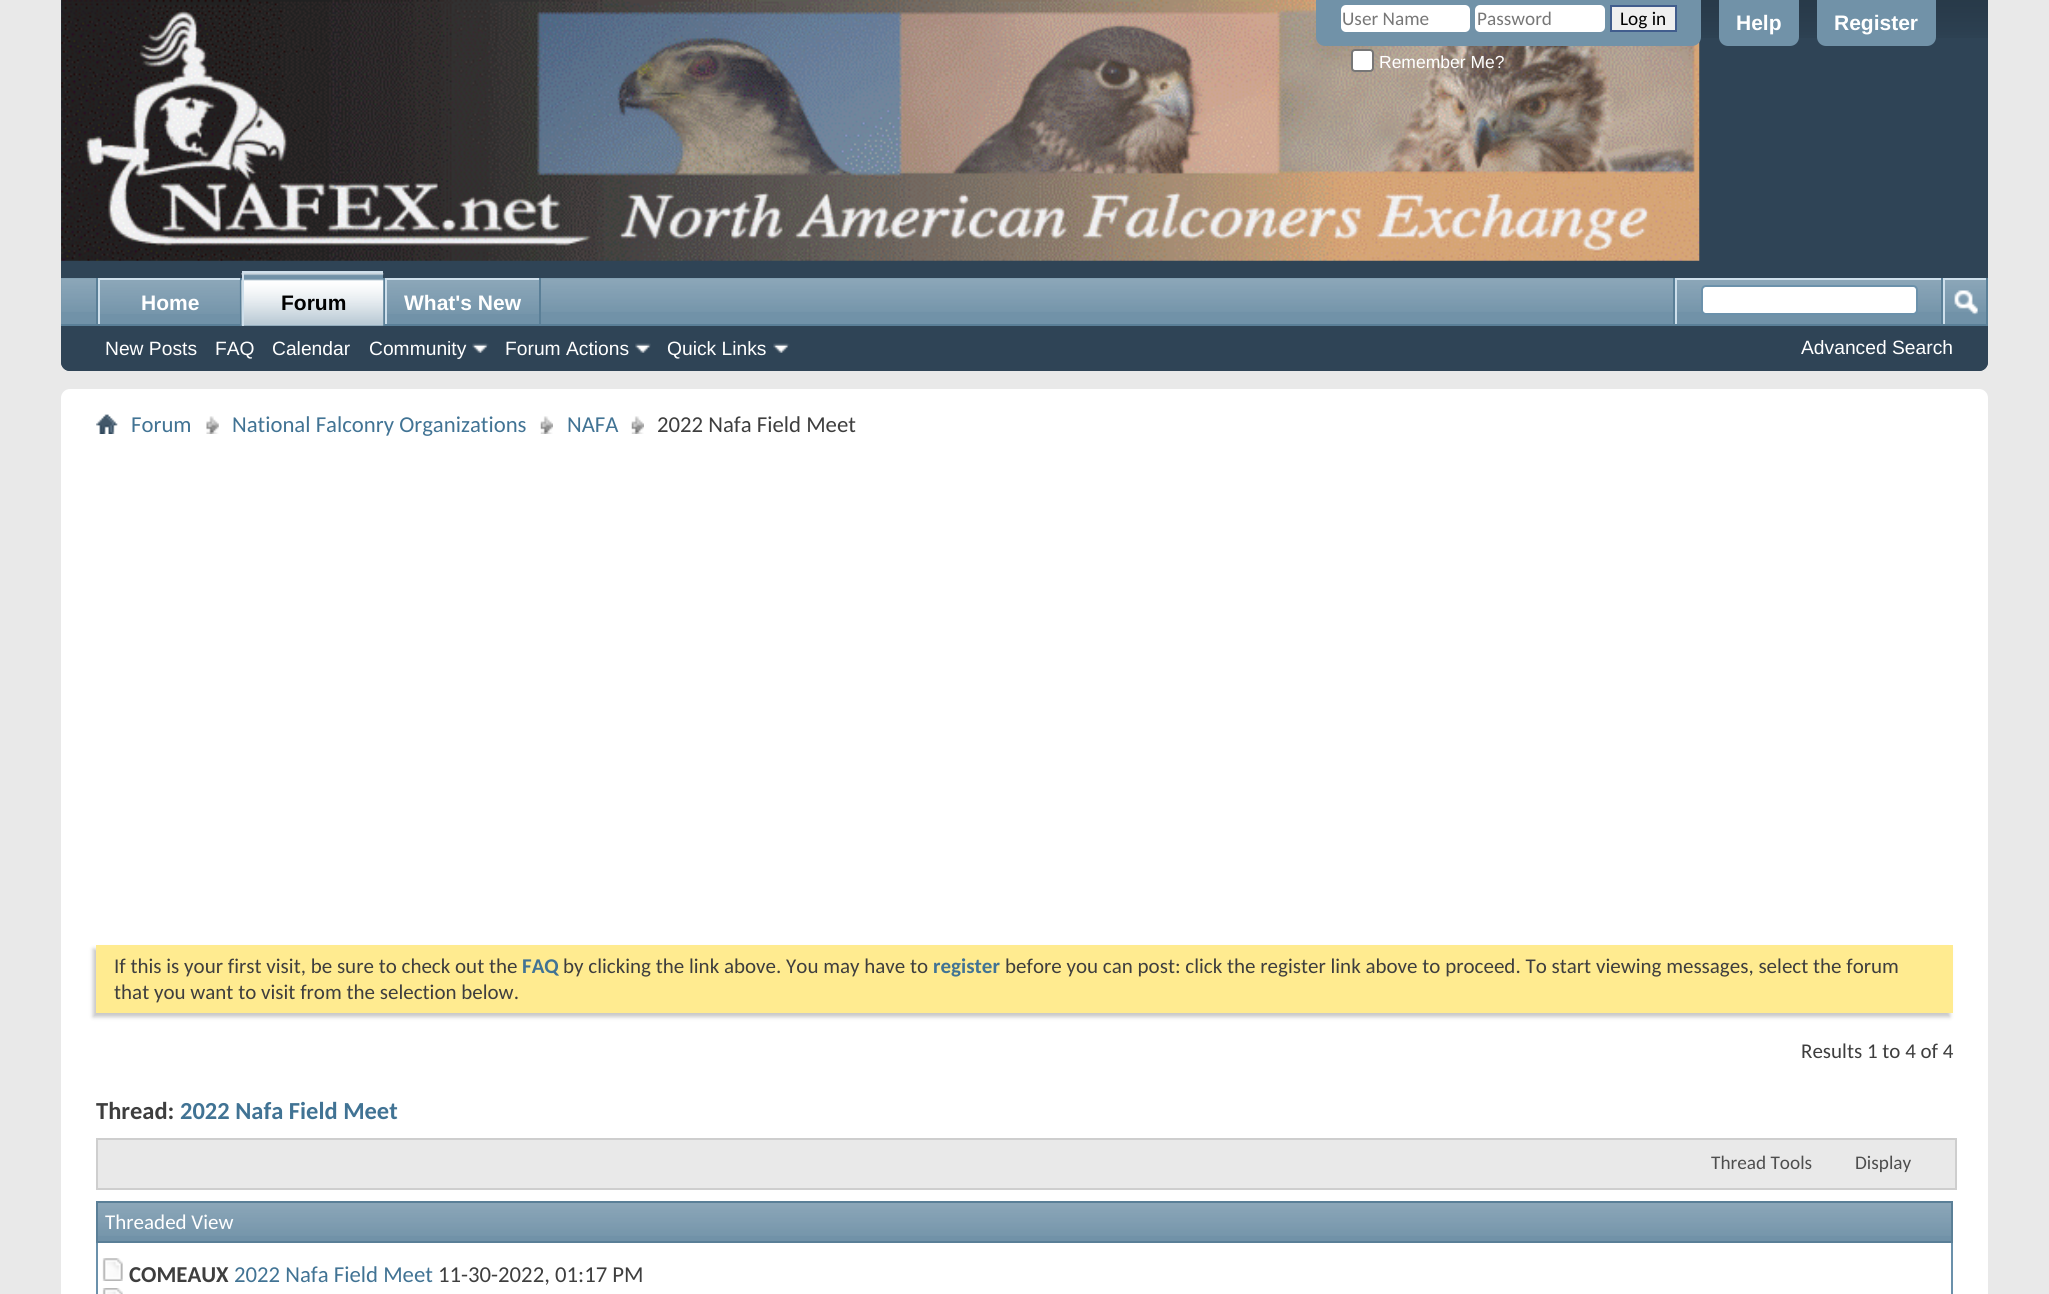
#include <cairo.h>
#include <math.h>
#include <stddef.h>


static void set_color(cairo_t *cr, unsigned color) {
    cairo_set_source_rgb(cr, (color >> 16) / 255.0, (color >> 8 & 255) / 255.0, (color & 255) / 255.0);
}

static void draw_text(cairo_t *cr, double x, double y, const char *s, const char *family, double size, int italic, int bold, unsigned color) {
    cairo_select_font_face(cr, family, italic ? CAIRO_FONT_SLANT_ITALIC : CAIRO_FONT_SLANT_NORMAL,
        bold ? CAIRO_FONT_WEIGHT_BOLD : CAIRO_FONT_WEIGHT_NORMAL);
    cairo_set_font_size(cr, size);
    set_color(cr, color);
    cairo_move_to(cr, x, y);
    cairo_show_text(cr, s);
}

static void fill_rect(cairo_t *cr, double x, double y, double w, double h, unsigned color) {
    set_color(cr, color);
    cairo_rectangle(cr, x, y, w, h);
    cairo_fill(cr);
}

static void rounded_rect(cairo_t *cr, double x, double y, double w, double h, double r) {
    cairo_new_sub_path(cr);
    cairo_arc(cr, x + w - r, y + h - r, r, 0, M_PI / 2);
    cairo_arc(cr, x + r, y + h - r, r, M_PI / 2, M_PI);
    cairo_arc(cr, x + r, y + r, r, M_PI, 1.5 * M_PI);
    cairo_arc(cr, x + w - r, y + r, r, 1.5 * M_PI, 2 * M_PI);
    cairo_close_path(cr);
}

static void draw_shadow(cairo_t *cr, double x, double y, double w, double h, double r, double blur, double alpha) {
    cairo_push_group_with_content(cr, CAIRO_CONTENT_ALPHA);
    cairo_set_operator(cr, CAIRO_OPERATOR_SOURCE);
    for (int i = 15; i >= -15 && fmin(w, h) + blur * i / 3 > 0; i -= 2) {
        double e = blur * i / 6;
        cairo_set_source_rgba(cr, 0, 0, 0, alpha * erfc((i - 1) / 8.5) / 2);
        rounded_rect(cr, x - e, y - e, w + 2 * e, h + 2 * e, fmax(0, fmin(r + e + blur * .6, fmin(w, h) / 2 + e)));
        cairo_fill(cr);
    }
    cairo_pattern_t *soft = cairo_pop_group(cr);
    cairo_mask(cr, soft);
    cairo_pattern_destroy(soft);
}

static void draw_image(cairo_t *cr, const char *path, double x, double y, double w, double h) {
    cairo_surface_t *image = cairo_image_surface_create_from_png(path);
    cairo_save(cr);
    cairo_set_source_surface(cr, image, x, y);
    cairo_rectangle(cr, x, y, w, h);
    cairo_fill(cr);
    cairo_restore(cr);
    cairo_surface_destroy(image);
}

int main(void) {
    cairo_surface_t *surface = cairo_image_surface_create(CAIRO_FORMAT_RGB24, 2049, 1294);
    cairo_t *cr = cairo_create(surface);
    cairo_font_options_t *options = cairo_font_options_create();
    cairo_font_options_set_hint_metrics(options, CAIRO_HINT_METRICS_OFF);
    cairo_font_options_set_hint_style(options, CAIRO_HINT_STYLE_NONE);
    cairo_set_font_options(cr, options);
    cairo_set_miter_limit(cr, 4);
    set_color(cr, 0xE9E9E9);
    cairo_paint(cr);
    set_color(cr, 0x2F4456);
    cairo_new_path(cr);
    cairo_move_to(cr, 61, 0);
    cairo_line_to(cr, 1988, 0);
    cairo_line_to(cr, 1988, 362);
    cairo_curve_to(cr, 1988, 367, 1984, 371, 1979, 371);
    cairo_line_to(cr, 70, 371);
    cairo_curve_to(cr, 65, 371, 61, 367, 61, 362);
    cairo_close_path(cr);
    cairo_fill(cr);
    draw_image(cr, "assets/img1.png", 61, 0, 1927, 38);
    draw_image(cr, "assets/img2.png", 61, 0, 1639, 261);
    set_color(cr, 0x7192A8);
    cairo_new_path(cr);
    cairo_move_to(cr, 1316, 0);
    cairo_line_to(cr, 1701, 0);
    cairo_line_to(cr, 1701, 37);
    cairo_curve_to(cr, 1701, 42, 1697, 46, 1692, 46);
    cairo_line_to(cr, 1325, 46);
    cairo_curve_to(cr, 1320, 46, 1316, 42, 1316, 37);
    cairo_close_path(cr);
    cairo_fill(cr);
    set_color(cr, 0xFFFFFF);
    rounded_rect(cr, 1341, 5, 129, 27, 5);
    cairo_fill(cr);
    draw_text(cr, 1342, 25, "User Name", "Carlito", 19.25, 0, 0, 0x777777);
    set_color(cr, 0xFFFFFF);
    rounded_rect(cr, 1475, 5, 130, 27, 5);
    cairo_fill(cr);
    draw_text(cr, 1477, 25, "Password", "Carlito", 19.25, 0, 0, 0x777777);
    set_color(cr, 0xEFEFEF);
    cairo_rectangle(cr, 1611, 6, 65, 25);
    cairo_fill_preserve(cr);
    set_color(cr, 0x415D8D);
    cairo_stroke(cr);
    draw_text(cr, 1620, 25, "Log in", "Carlito", 19.25, 0, 0, 0x000000);
    set_color(cr, 0xFFFFFF);
    rounded_rect(cr, 1352, 50, 21, 21, 3);
    cairo_fill_preserve(cr);
    set_color(cr, 0x767676);
    cairo_stroke(cr);
    draw_text(cr, 1379, 68, "Remember Me?", "Liberation Sans", 17.5, 0, 0, 0xFFFFFF);
    set_color(cr, 0x7192A8);
    cairo_new_path(cr);
    cairo_move_to(cr, 1719, 0);
    cairo_line_to(cr, 1799, 0);
    cairo_line_to(cr, 1799, 37);
    cairo_curve_to(cr, 1799, 42, 1795, 46, 1790, 46);
    cairo_line_to(cr, 1728, 46);
    cairo_curve_to(cr, 1723, 46, 1719, 42, 1719, 37);
    cairo_close_path(cr);
    cairo_fill(cr);
    draw_text(cr, 1736, 30, "Help", "Liberation Sans", 21, 0, 1, 0xFFFFFF);
    set_color(cr, 0x7192A8);
    cairo_new_path(cr);
    cairo_move_to(cr, 1817, 0);
    cairo_line_to(cr, 1936, 0);
    cairo_line_to(cr, 1936, 37);
    cairo_curve_to(cr, 1936, 42, 1932, 46, 1927, 46);
    cairo_line_to(cr, 1826, 46);
    cairo_curve_to(cr, 1821, 46, 1817, 42, 1817, 37);
    cairo_close_path(cr);
    cairo_fill(cr);
    draw_text(cr, 1834, 30, "Register", "Liberation Sans", 21, 0, 1, 0xFFFFFF);
    set_color(cr, 0x2F4456);
    cairo_new_path(cr);
    cairo_move_to(cr, 61, 278);
    cairo_line_to(cr, 1988, 278);
    cairo_line_to(cr, 1988, 362);
    cairo_curve_to(cr, 1988, 367, 1984, 371, 1979, 371);
    cairo_line_to(cr, 70, 371);
    cairo_curve_to(cr, 65, 371, 61, 367, 61, 362);
    cairo_close_path(cr);
    cairo_fill(cr);
    fill_rect(cr, 61, 278, 1925, 46, 0x7192A8);
    draw_image(cr, "assets/img3.png", 61, 278, 1925, 34);
    fill_rect(cr, 240, 278, 2, 48, 0x5A7F97);
    fill_rect(cr, 96, 278, 2, 48, 0x5A7F97);
    fill_rect(cr, 100, 280, 140, 32, 0x7192A8);
    draw_image(cr, "assets/img4.png", 100, 280, 140, 34);
    fill_rect(cr, 98, 278, 142, 2, 0xCEDFEB);
    fill_rect(cr, 98, 278, 2, 48, 0xCEDFEB);
    draw_text(cr, 141, 310, "Home", "Liberation Sans", 21, 0, 1, 0xFFFFFF);
    fill_rect(cr, 383, 278, 2, 46, 0x5A7F97);
    fill_rect(cr, 539, 278, 2, 48, 0x5A7F97);
    fill_rect(cr, 385, 278, 154, 2, 0xCEDFEB);
    fill_rect(cr, 385, 278, 2, 48, 0xCEDFEB);
    fill_rect(cr, 61, 324, 1927, 2, 0x5A7F97);
    fill_rect(cr, 244, 273, 139, 53, 0x7192A8);
    draw_image(cr, "assets/img5.png", 241, 273, 143, 53);
    fill_rect(cr, 242, 271, 141, 2, 0xCEDFEB);
    fill_rect(cr, 242, 271, 2, 55, 0xCEDFEB);
    draw_text(cr, 281, 310, "Forum", "Liberation Sans", 21, 0, 1, 0x000000);
    fill_rect(cr, 387, 280, 152, 32, 0x7192A8);
    draw_image(cr, "assets/img6.png", 387, 280, 152, 34);
    draw_text(cr, 404, 310, "What's New", "Liberation Sans", 21, 0, 1, 0xFFFFFF);
    draw_text(cr, 105, 355, "New Posts", "Liberation Sans", 19.25, 0, 0, 0xFFFFFF);
    draw_text(cr, 215, 355, "FAQ", "Liberation Sans", 19.25, 0, 0, 0xFFFFFF);
    draw_text(cr, 272, 355, "Calendar", "Liberation Sans", 19.25, 0, 0, 0xFFFFFF);
    draw_text(cr, 369, 355, "Community", "Liberation Sans", 19.25, 0, 0, 0xFFFFFF);
    draw_image(cr, "assets/img7.png", 472, 343, 17, 10);
    draw_text(cr, 505, 355, "Forum Actions", "Liberation Sans", 19.25, 0, 0, 0xFFFFFF);
    draw_image(cr, "assets/img8.png", 635, 343, 16, 10);
    draw_text(cr, 667, 355, "Quick Links", "Liberation Sans", 19.25, 0, 0, 0xFFFFFF);
    draw_image(cr, "assets/img9.png", 773, 343, 17, 10);
    fill_rect(cr, 1673, 278, 2, 46, 0x5A7F97);
    fill_rect(cr, 1675, 278, 266, 2, 0xCEDFEB);
    fill_rect(cr, 1675, 278, 2, 46, 0xCEDFEB);
    set_color(cr, 0xFFFFFF);
    rounded_rect(cr, 1702, 286, 215, 28, 4);
    cairo_fill_preserve(cr);
    set_color(cr, 0x6B91AB);
    cairo_stroke(cr);
    fill_rect(cr, 1986, 278, 2, 46, 0x5A7F97);
    fill_rect(cr, 1941, 278, 2, 46, 0x5A7F97);
    fill_rect(cr, 1943, 278, 43, 2, 0xCEDFEB);
    fill_rect(cr, 1943, 278, 2, 46, 0xCEDFEB);
    draw_image(cr, "assets/img10.png", 1954, 290, 24, 25);
    draw_text(cr, 1801, 354, "Advanced Search", "Liberation Sans", 19.25, 0, 0, 0xFFFFFF);
    rounded_rect(cr, 61, 389, 1927, 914, 9);
    cairo_fill(cr);
    draw_image(cr, "assets/img11.png", 96, 414, 22, 20);
    draw_image(cr, "assets/img12.png", 206, 416, 13, 18);
    draw_text(cr, 131, 432, "Forum", "Carlito", 22.75, 0, 0, 0x417394);
    draw_image(cr, "assets/img13.png", 540, 416, 13, 18);
    draw_text(cr, 232, 432, "National Falconry Organizations", "Carlito", 22.75, 0, 0, 0x417394);
    draw_image(cr, "assets/img13.png", 631, 416, 13, 18);
    draw_text(cr, 567, 432, "NAFA", "Carlito", 22.75, 0, 0, 0x417394);
    draw_text(cr, 657, 432, "2022 Nafa Field Meet", "Carlito", 22.75, 0, 0, 0x3E3E3E);
    set_color(cr, 0xC8C8C8);
    draw_shadow(cr, 93, 949, 1857, 68, 0, 2, 1);
    fill_rect(cr, 96, 945, 1857, 68, 0xFFEB90);
    draw_text(cr, 114, 973, "If this is your first visit, be sure to check out the", "Carlito", 21, 0, 0, 0x3E3E3E);
    draw_text(cr, 522, 973, "FAQ", "Carlito", 21, 0, 1, 0x417394);
    draw_text(cr, 563, 973, "by clicking the link above. You may have to", "Carlito", 21, 0, 0, 0x3E3E3E);
    draw_text(cr, 933, 973, "register", "Carlito", 21, 0, 1, 0x417394);
    draw_text(cr, 1005, 973, "before you can post: click the register link above to proceed. To start viewing messages, select the forum", "Carlito", 21, 0, 0, 0x3E3E3E);
    draw_text(cr, 114, 999, "that you want to visit from the selection below.", "Carlito", 21, 0, 0, 0x3E3E3E);
    draw_text(cr, 1801, 1058, "Results 1 to 4 of 4", "Carlito", 21, 0, 0, 0x3E3E3E);
    draw_text(cr, 96, 1119, "Thread:", "Carlito", 24.5, 0, 1, 0x3E3E3E);
    draw_text(cr, 180, 1119, "2022 Nafa Field Meet", "Carlito", 24.5, 0, 1, 0x417394);
    set_color(cr, 0xE9E9E9);
    cairo_rectangle(cr, 97, 1139, 1859, 50);
    cairo_fill_preserve(cr);
    set_color(cr, 0xCECECE);
    cairo_stroke(cr);
    draw_text(cr, 1711, 1169, "Thread Tools", "Carlito", 19.25, 0, 0, 0x4E4E4E);
    draw_text(cr, 1855, 1169, "Display", "Carlito", 19.25, 0, 0, 0x4E4E4E);
    fill_rect(cr, 98, 1203, 1853, 38, 0x7192A8);
    draw_image(cr, "assets/img14.png", 98, 1203, 1853, 33);
    cairo_rectangle(cr, 97, 1202, 1855, 40);
    set_color(cr, 0x5A7F97);
    cairo_stroke(cr);
    draw_text(cr, 105, 1229, "Threaded View", "Carlito", 21, 0, 0, 0xFFFFFF);
    fill_rect(cr, 1951, 1243, 2, 51, 0x6B91AB);
    fill_rect(cr, 96, 1243, 2, 51, 0x6B91AB);
    draw_image(cr, "assets/img15.png", 102, 1258, 21, 23);
    draw_text(cr, 129, 1282, "COMEAUX", "Carlito", 22.75, 0, 1, 0x3E3E3E);
    draw_text(cr, 234, 1282, "2022 Nafa Field Meet", "Carlito", 22.75, 0, 0, 0x417394);
    draw_text(cr, 438, 1282, "11-30-2022, 01:17 PM", "Carlito", 22.75, 0, 0, 0x3E3E3E);
    draw_image(cr, "assets/img16.png", 102, 1288, 21, 6);
    cairo_surface_write_to_png(surface, "output.png");
    cairo_font_options_destroy(options);
    cairo_destroy(cr);
    cairo_surface_destroy(surface);
    return 0;
}
